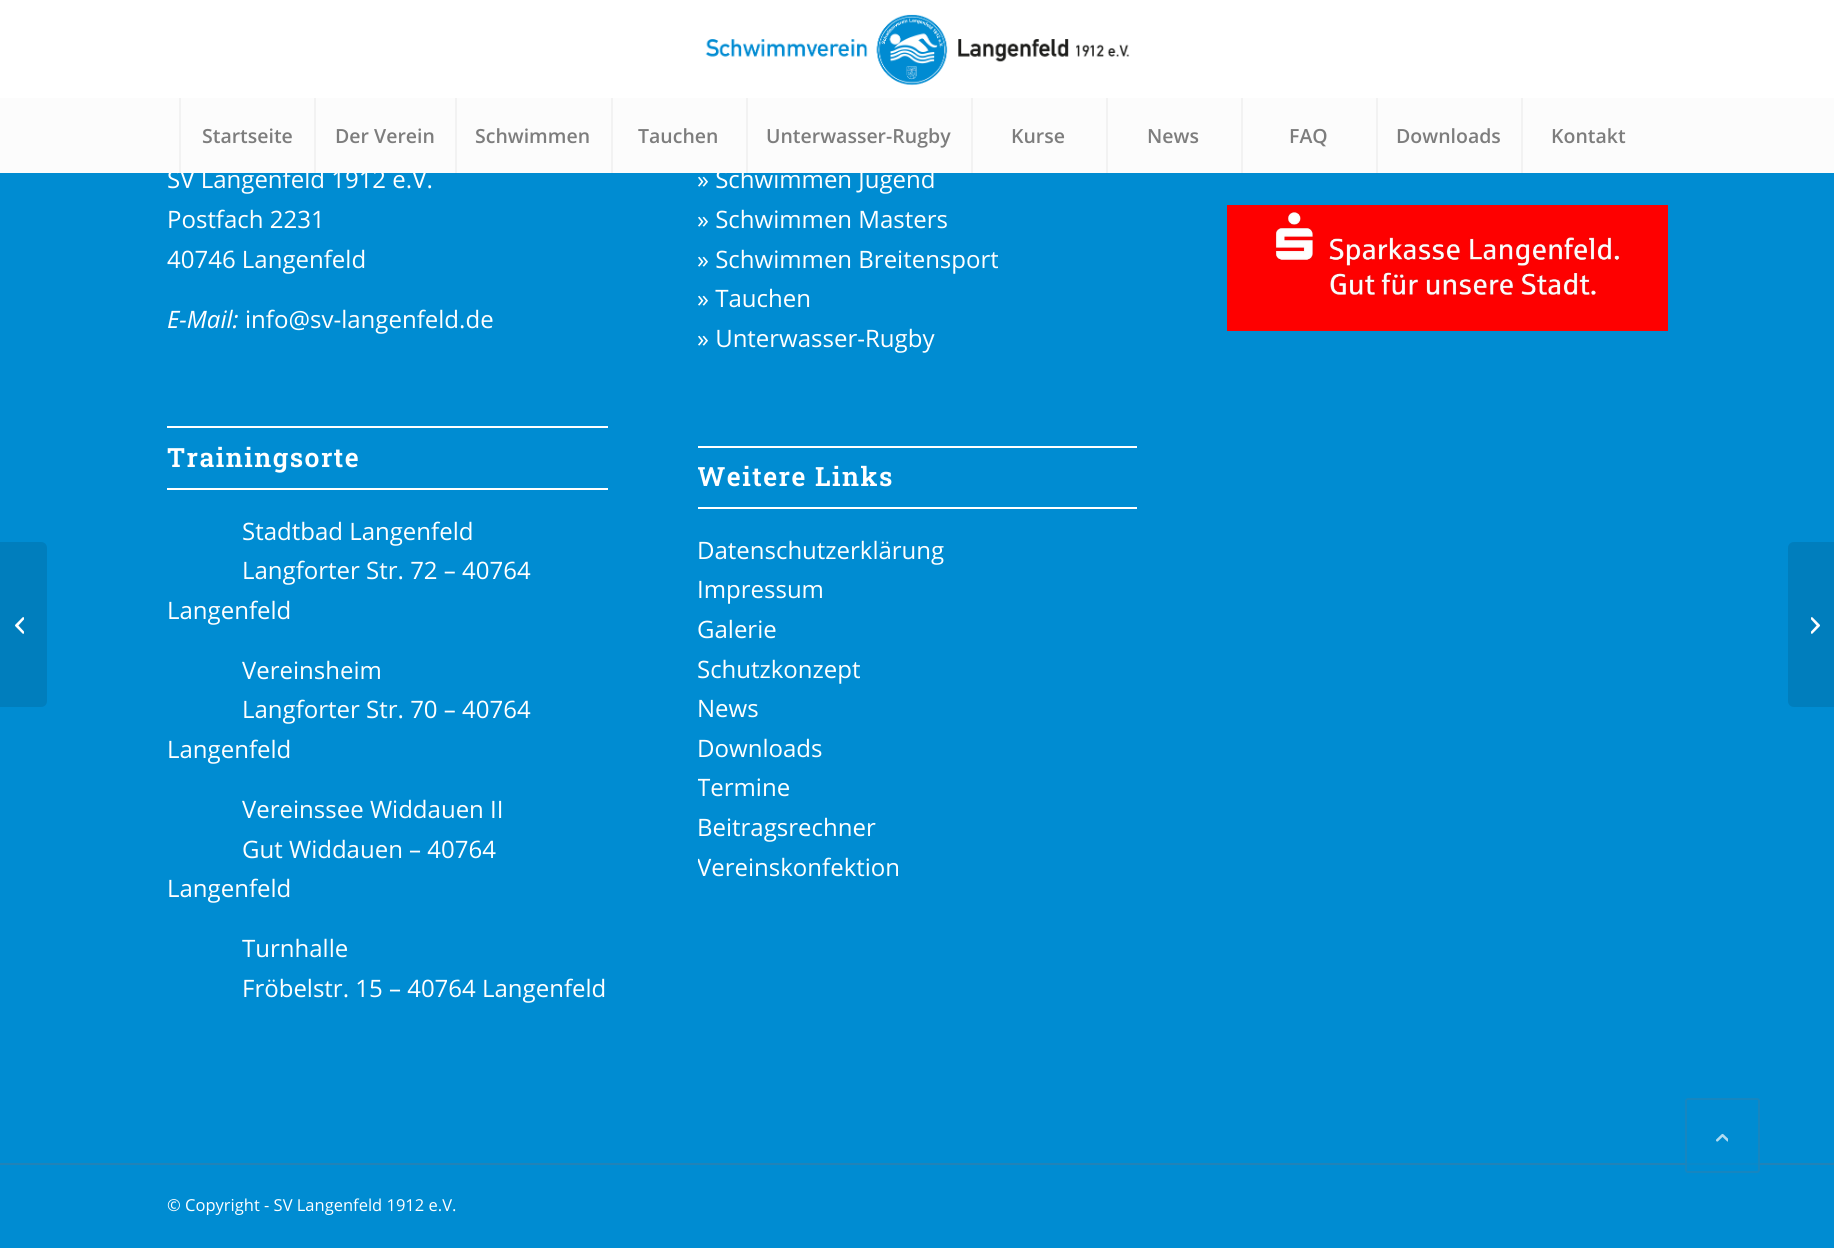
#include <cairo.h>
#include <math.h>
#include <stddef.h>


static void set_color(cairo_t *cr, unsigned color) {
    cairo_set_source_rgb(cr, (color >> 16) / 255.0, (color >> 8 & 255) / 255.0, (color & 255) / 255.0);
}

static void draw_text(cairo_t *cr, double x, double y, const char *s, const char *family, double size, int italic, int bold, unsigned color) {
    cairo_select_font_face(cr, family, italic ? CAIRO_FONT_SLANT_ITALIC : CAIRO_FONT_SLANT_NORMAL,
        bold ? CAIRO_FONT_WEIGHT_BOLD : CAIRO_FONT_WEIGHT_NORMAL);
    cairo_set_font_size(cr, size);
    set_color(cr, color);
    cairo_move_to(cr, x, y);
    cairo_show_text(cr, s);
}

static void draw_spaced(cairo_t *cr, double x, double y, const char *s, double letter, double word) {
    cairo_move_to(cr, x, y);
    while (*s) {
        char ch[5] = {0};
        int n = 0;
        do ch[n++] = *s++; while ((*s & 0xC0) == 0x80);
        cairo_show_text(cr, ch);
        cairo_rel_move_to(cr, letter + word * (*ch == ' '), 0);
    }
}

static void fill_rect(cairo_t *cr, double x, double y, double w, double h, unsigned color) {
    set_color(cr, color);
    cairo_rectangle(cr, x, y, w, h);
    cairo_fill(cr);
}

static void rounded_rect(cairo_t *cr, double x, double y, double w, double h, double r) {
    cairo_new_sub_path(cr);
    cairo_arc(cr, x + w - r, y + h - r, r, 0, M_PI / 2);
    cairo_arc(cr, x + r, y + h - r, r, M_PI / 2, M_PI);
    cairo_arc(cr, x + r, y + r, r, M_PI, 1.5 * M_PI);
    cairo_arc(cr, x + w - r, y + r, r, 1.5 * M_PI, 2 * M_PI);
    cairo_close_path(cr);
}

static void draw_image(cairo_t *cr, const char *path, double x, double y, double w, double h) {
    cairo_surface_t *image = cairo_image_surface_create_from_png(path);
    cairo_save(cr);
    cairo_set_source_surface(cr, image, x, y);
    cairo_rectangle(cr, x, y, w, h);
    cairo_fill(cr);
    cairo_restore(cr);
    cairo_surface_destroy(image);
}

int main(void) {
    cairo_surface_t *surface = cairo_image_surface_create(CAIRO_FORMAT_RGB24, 1834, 1248);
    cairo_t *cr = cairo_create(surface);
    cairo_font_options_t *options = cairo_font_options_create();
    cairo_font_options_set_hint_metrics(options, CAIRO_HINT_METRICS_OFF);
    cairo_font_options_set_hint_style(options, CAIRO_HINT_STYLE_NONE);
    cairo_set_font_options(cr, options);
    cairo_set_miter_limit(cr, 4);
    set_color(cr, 0x008CD2);
    cairo_paint(cr);
    fill_rect(cr, 0, 0, 1834, 98, 0xFFFFFF);
    draw_image(cr, "assets/img1.png", 705, 14, 425, 72);
    draw_text(cr, 167, 188, "SV Langenfeld 1912 e.V.", "Open Sans", 24, 0, 0, 0xFFFFFF);
    draw_text(cr, 697, 188, "» Schwimmen Jugend", "Open Sans", 24, 0, 0, 0xFFFFFF);
    fill_rect(cr, 0, 98, 1834, 75, 0xFCFCFC);
    fill_rect(cr, 179, 98, 2, 75, 0xF2F2F2);
    draw_text(cr, 202, 143, "Startseite", "Open Sans SemiBold", 19.5, 0, 0, 0x7D7D7D);
    fill_rect(cr, 314, 98, 2, 75, 0xF2F2F2);
    draw_text(cr, 335, 143, "Der Verein", "Open Sans SemiBold", 19.5, 0, 0, 0x7D7D7D);
    fill_rect(cr, 455, 98, 2, 75, 0xF2F2F2);
    draw_text(cr, 475, 143, "Schwimmen", "Open Sans SemiBold", 19.5, 0, 0, 0x7D7D7D);
    fill_rect(cr, 611, 98, 2, 75, 0xF2F2F2);
    draw_text(cr, 638, 143, "Tauchen", "Open Sans SemiBold", 19.5, 0, 0, 0x7D7D7D);
    fill_rect(cr, 746, 98, 2, 75, 0xF2F2F2);
    draw_text(cr, 766, 143, "Unterwasser-Rugby", "Open Sans SemiBold", 19.5, 0, 0, 0x7D7D7D);
    fill_rect(cr, 971, 98, 2, 75, 0xF2F2F2);
    draw_text(cr, 1011, 143, "Kurse", "Open Sans SemiBold", 19.5, 0, 0, 0x7D7D7D);
    fill_rect(cr, 1106, 98, 2, 75, 0xF2F2F2);
    draw_text(cr, 1147, 143, "News", "Open Sans SemiBold", 19.5, 0, 0, 0x7D7D7D);
    fill_rect(cr, 1241, 98, 2, 75, 0xF2F2F2);
    draw_text(cr, 1289, 143, "FAQ", "Open Sans SemiBold", 19.5, 0, 0, 0x7D7D7D);
    fill_rect(cr, 1376, 98, 2, 75, 0xF2F2F2);
    draw_text(cr, 1396, 143, "Downloads", "Open Sans SemiBold", 19.5, 0, 0, 0x7D7D7D);
    fill_rect(cr, 1521, 98, 2, 75, 0xF2F2F2);
    draw_text(cr, 1551, 143, "Kontakt", "Open Sans SemiBold", 19.5, 0, 0, 0x7D7D7D);
    set_color(cr, 0x007EBD);
    cairo_new_path(cr);
    cairo_move_to(cr, 0, 542);
    cairo_line_to(cr, 41, 542);
    cairo_curve_to(cr, 44.5, 542, 47, 544.5, 47, 548);
    cairo_line_to(cr, 47, 701);
    cairo_curve_to(cr, 47, 704.5, 44.5, 707, 41, 707);
    cairo_line_to(cr, 0, 707);
    cairo_close_path(cr);
    cairo_fill(cr);
    draw_image(cr, "assets/img2.png", 15, 617, 9, 17);
    draw_text(cr, 167, 228, "Postfach 2231", "Open Sans", 24, 0, 0, 0xFFFFFF);
    draw_text(cr, 167, 268, "40746 Langenfeld", "Open Sans", 24, 0, 0, 0xFFFFFF);
    draw_text(cr, 167, 328, "E-Mail:", "Open Sans", 24, 1, 0, 0xFFFFFF);
    draw_text(cr, 245, 328, "info@sv-langenfeld.de", "Open Sans", 24, 0, 0, 0xFFFFFF);
    fill_rect(cr, 167, 426, 441, 2, 0xFFFFFF);
    fill_rect(cr, 167, 488, 441, 2, 0xFFFFFF);
    cairo_select_font_face(cr, "Roboto Slab SemiBold", CAIRO_FONT_SLANT_NORMAL, CAIRO_FONT_WEIGHT_NORMAL);
    cairo_set_font_size(cr, 26.5);
    draw_spaced(cr, 167, 467, "Trainingsorte", 1.5, 0);
    draw_text(cr, 242, 540, "Stadtbad Langenfeld", "Open Sans", 24, 0, 0, 0xFFFFFF);
    draw_text(cr, 242, 579, "Langforter Str. 72 – 40764", "Open Sans", 24, 0, 0, 0xFFFFFF);
    draw_text(cr, 167, 619, "Langenfeld", "Open Sans", 24, 0, 0, 0xFFFFFF);
    draw_text(cr, 242, 679, "Vereinsheim", "Open Sans", 24, 0, 0, 0xFFFFFF);
    draw_text(cr, 242, 718, "Langforter Str. 70 – 40764", "Open Sans", 24, 0, 0, 0xFFFFFF);
    draw_text(cr, 167, 758, "Langenfeld", "Open Sans", 24, 0, 0, 0xFFFFFF);
    draw_text(cr, 242, 818, "Vereinssee Widdauen II", "Open Sans", 24, 0, 0, 0xFFFFFF);
    draw_text(cr, 242, 858, "Gut Widdauen – 40764", "Open Sans", 24, 0, 0, 0xFFFFFF);
    draw_text(cr, 167, 897, "Langenfeld", "Open Sans", 24, 0, 0, 0xFFFFFF);
    draw_text(cr, 242, 957, "Turnhalle", "Open Sans", 24, 0, 0, 0xFFFFFF);
    draw_text(cr, 242, 997, "Fröbelstr. 15 – 40764 Langenfeld", "Open Sans", 24, 0, 0, 0xFFFFFF);
    draw_text(cr, 697, 228, "» Schwimmen Masters", "Open Sans", 24, 0, 0, 0xFFFFFF);
    draw_text(cr, 697, 268, "» Schwimmen Breitensport", "Open Sans", 24, 0, 0, 0xFFFFFF);
    draw_text(cr, 697, 307, "» Tauchen", "Open Sans", 24, 0, 0, 0xFFFFFF);
    draw_text(cr, 697, 347, "» Unterwasser-Rugby", "Open Sans", 24, 0, 0, 0xFFFFFF);
    fill_rect(cr, 698, 446, 439, 2, 0xFFFFFF);
    fill_rect(cr, 698, 507, 439, 2, 0xFFFFFF);
    cairo_save(cr);
    cairo_rectangle(cr, 698, 423, 439, 485);
    cairo_clip(cr);
    cairo_select_font_face(cr, "Roboto Slab SemiBold", CAIRO_FONT_SLANT_NORMAL, CAIRO_FONT_WEIGHT_NORMAL);
    cairo_set_font_size(cr, 26.5);
    draw_spaced(cr, 697, 486, "Weitere Links", 1.5, 0);
    cairo_restore(cr);
    draw_text(cr, 697, 559, "Datenschutzerklärung", "Open Sans", 24, 0, 0, 0xFFFFFF);
    draw_text(cr, 697, 598, "Impressum", "Open Sans", 24, 0, 0, 0xFFFFFF);
    draw_text(cr, 697, 638, "Galerie", "Open Sans", 24, 0, 0, 0xFFFFFF);
    draw_text(cr, 697, 678, "Schutzkonzept", "Open Sans", 24, 0, 0, 0xFFFFFF);
    draw_text(cr, 697, 717, "News", "Open Sans", 24, 0, 0, 0xFFFFFF);
    draw_text(cr, 697, 757, "Downloads", "Open Sans", 24, 0, 0, 0xFFFFFF);
    cairo_save(cr);
    cairo_rectangle(cr, 698, 423, 439, 485);
    cairo_clip(cr);
    draw_text(cr, 697, 796, "Termine", "Open Sans", 24, 0, 0, 0xFFFFFF);
    cairo_restore(cr);
    draw_text(cr, 697, 836, "Beitragsrechner", "Open Sans", 24, 0, 0, 0xFFFFFF);
    cairo_save(cr);
    cairo_rectangle(cr, 698, 423, 439, 485);
    cairo_clip(cr);
    draw_text(cr, 697, 876, "Vereinskonfektion", "Open Sans", 24, 0, 0, 0xFFFFFF);
    cairo_restore(cr);
    draw_image(cr, "assets/img3.png", 1227, 205, 441, 126);
    fill_rect(cr, 0, 1163, 1834, 2, 0x2183B8);
    draw_text(cr, 167, 1211, "© Copyright - SV Langenfeld 1912 e.V.", "Open Sans", 16.5, 0, 0, 0xFFFFFF);
    set_color(cr, 0x007EBD);
    cairo_new_path(cr);
    cairo_move_to(cr, 1794, 542);
    cairo_line_to(cr, 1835, 542);
    cairo_line_to(cr, 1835, 707);
    cairo_line_to(cr, 1794, 707);
    cairo_curve_to(cr, 1790.5, 707, 1788, 704.5, 1788, 701);
    cairo_line_to(cr, 1788, 548);
    cairo_curve_to(cr, 1788, 544.5, 1790.5, 542, 1794, 542);
    cairo_close_path(cr);
    cairo_fill(cr);
    draw_image(cr, "assets/img4.png", 1811, 617, 9, 17);
    cairo_set_source_rgba(cr, 0, 0.549, 0.824, 0.7);
    rounded_rect(cr, 1685, 1098, 75, 75, 3);
    cairo_fill(cr);
    rounded_rect(cr, 1686, 1099, 73, 73, 2);
    cairo_set_source_rgba(cr, 0.129, 0.514, 0.722, 0.7);
    cairo_stroke(cr);
    draw_image(cr, "assets/img5.png", 1716, 1133, 12, 9);
    cairo_surface_write_to_png(surface, "output.png");
    cairo_font_options_destroy(options);
    cairo_destroy(cr);
    cairo_surface_destroy(surface);
    return 0;
}
